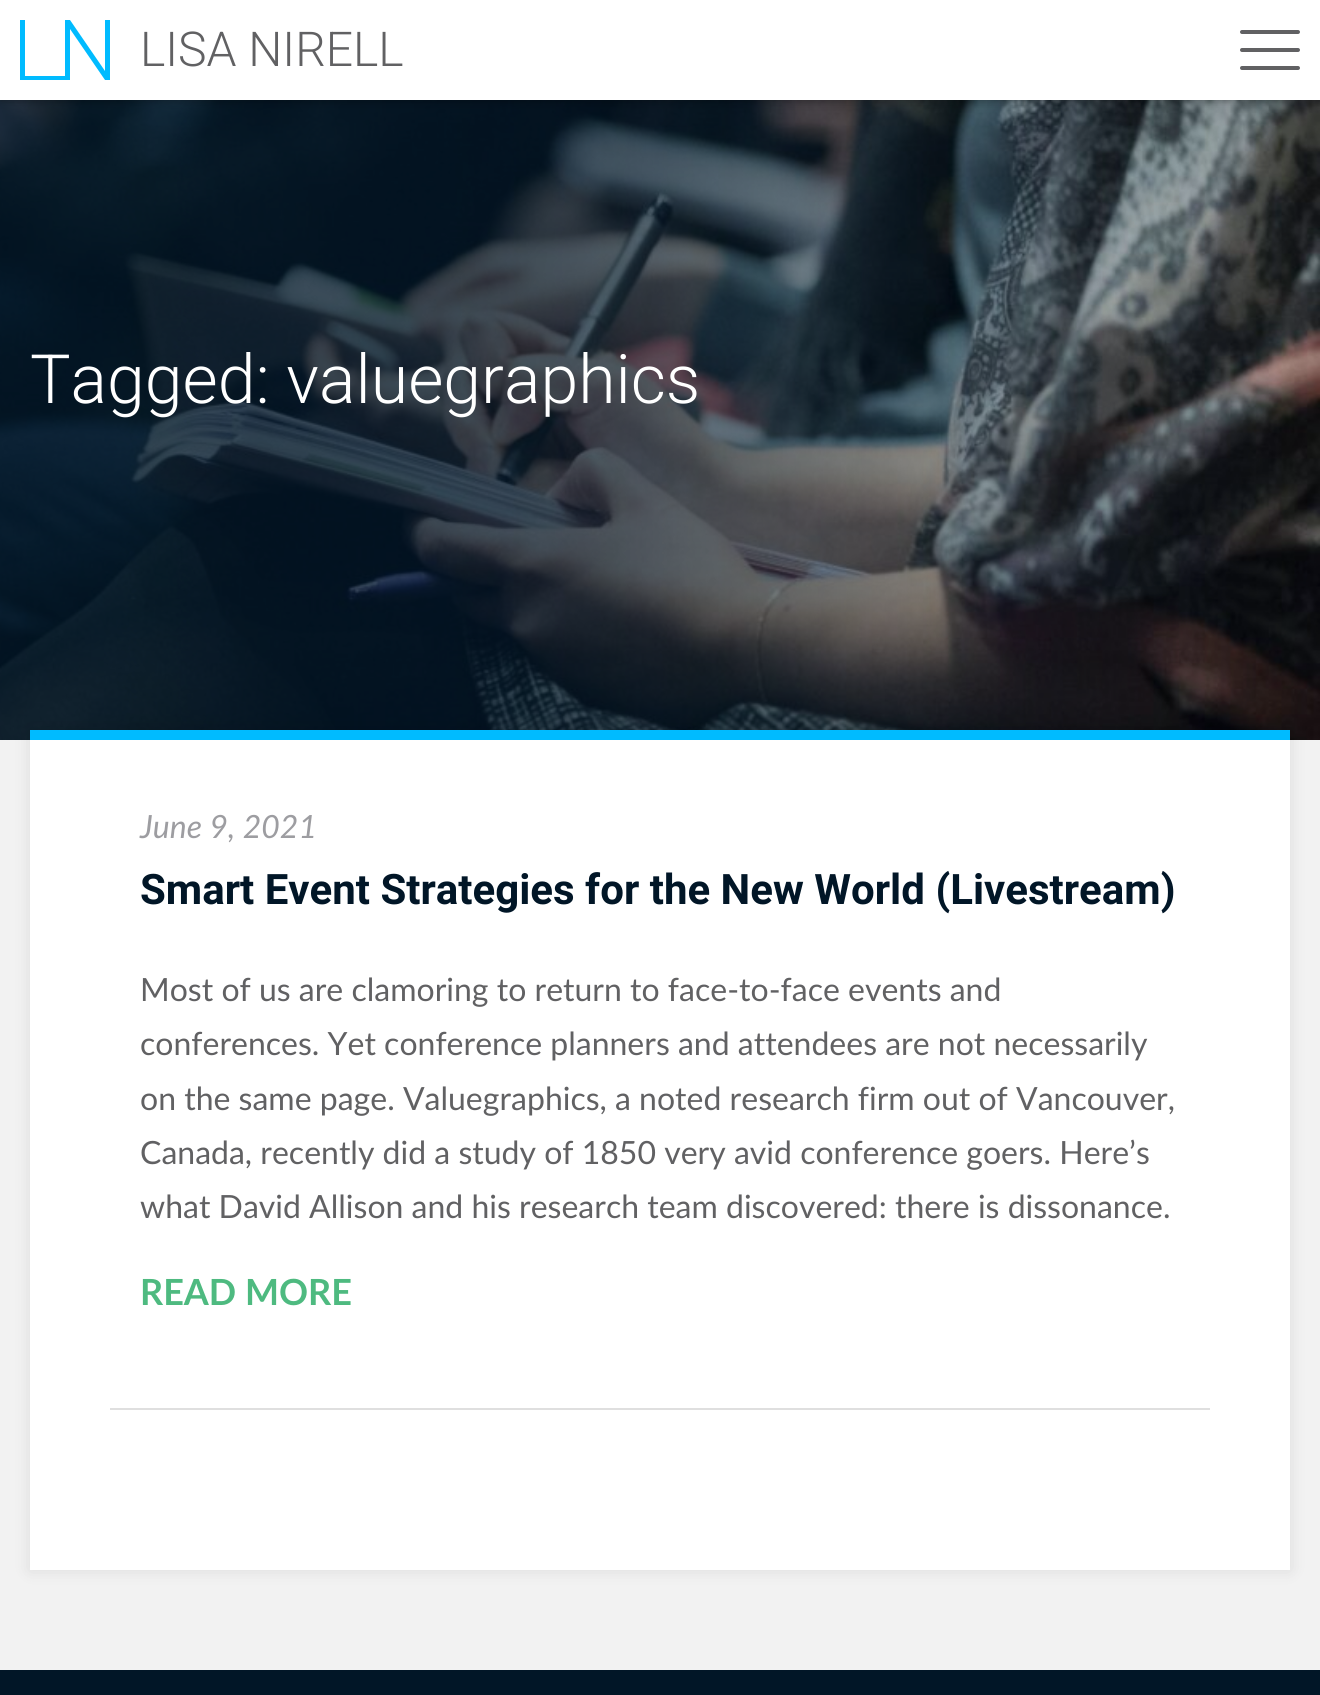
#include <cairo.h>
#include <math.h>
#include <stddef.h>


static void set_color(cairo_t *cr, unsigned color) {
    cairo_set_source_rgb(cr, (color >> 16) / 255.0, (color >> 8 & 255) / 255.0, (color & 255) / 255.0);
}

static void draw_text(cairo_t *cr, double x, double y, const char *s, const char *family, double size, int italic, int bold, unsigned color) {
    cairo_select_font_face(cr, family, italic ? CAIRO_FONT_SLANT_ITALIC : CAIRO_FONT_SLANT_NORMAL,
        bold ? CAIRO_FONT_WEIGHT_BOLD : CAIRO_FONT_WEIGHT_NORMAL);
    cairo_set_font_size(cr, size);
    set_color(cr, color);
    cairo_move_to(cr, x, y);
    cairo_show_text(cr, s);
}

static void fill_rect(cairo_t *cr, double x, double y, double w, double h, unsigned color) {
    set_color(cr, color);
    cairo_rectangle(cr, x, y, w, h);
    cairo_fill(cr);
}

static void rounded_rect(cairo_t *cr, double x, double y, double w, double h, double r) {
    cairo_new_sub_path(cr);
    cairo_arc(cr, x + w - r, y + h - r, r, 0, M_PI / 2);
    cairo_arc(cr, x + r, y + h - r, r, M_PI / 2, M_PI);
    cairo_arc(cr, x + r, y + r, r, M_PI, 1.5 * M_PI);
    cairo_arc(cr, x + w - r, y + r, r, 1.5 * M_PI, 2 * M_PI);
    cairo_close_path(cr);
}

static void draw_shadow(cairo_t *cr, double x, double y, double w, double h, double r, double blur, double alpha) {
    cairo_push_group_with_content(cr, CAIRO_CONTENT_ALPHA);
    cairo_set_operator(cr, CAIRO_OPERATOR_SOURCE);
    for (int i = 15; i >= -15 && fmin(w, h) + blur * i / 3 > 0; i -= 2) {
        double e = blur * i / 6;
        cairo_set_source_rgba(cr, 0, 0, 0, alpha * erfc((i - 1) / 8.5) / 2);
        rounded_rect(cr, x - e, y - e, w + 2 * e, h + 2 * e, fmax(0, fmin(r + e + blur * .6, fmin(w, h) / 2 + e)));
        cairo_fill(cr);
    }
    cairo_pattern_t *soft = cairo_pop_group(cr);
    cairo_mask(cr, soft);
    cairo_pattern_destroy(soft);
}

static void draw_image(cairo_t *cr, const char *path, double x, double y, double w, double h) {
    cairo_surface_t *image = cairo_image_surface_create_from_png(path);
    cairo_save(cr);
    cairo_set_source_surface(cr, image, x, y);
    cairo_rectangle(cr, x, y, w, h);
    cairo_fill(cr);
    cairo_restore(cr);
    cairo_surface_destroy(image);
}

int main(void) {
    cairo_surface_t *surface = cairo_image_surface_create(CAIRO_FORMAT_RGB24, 1320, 1695);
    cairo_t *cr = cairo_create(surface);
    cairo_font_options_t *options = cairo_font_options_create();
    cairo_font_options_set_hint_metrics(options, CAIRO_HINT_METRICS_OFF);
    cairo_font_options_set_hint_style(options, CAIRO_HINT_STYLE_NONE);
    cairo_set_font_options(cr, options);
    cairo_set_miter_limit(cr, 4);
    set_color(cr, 0x011627);
    cairo_paint(cr);
    draw_image(cr, "assets/img1.png", 0, 100, 1320, 640);
    draw_image(cr, "assets/img2.png", 0, 100, 1320, 640);
    set_color(cr, 0x000000);
    draw_shadow(cr, 0, 0, 1320, 100, 0, 5, 0.4);
    fill_rect(cr, 0, 0, 1320, 100, 0xFFFFFF);
    set_color(cr, 0x00BBFF);
    cairo_new_path(cr);
    cairo_move_to(cr, 25, 76);
    cairo_line_to(cr, 65, 76);
    cairo_line_to(cr, 65, 80);
    cairo_line_to(cr, 20, 80);
    cairo_line_to(cr, 20, 20);
    cairo_line_to(cr, 25, 20);
    cairo_close_path(cr);
    cairo_fill(cr);
    cairo_new_path(cr);
    cairo_move_to(cr, 110, 80);
    cairo_line_to(cr, 105, 80);
    cairo_line_to(cr, 70, 29);
    cairo_line_to(cr, 70, 80);
    cairo_line_to(cr, 65, 80);
    cairo_line_to(cr, 65, 20);
    cairo_line_to(cr, 70, 20);
    cairo_line_to(cr, 105, 71);
    cairo_line_to(cr, 105, 20);
    cairo_line_to(cr, 110, 20);
    cairo_close_path(cr);
    cairo_fill(cr);
    draw_text(cr, 140, 66, "LISA NIRELL", "Roboto Light", 48, 0, 0, 0x616163);
    rounded_rect(cr, 1240, 30, 60, 4, 2);
    cairo_fill(cr);
    rounded_rect(cr, 1240, 48, 60, 4, 2);
    cairo_fill(cr);
    rounded_rect(cr, 1240, 66, 60, 4, 2);
    cairo_fill(cr);
    draw_text(cr, 30, 403, "Tagged: valuegraphics", "Roboto Light", 68, 0, 0, 0xFFFFFF);
    fill_rect(cr, 0, 740, 1320, 930, 0xF2F2F2);
    set_color(cr, 0x000000);
    draw_shadow(cr, 30, 730, 1260, 840, 0, 8, 0.1);
    fill_rect(cr, 30, 740, 1260, 830, 0xFFFFFF);
    fill_rect(cr, 30, 730, 1260, 10, 0x00BBFF);
    fill_rect(cr, 110, 1408, 1100, 2, 0xDFDFDF);
    draw_text(cr, 140, 838, "June 9, 2021", "Lato", 32, 1, 0, 0x9D9DA1);
    draw_text(cr, 140, 904, "Smart Event Strategies for the New World (Livestream)", "Roboto", 42, 0, 1, 0x011627);
    draw_text(cr, 140, 1001, "Most of us are clamoring to return to face-to-face events and", "Lato", 32, 0, 0, 0x616163);
    draw_text(cr, 140, 1055, "conferences. Yet conference planners and attendees are not necessarily", "Lato", 32, 0, 0, 0x616163);
    draw_text(cr, 140, 1110, "on the same page. Valuegraphics, a noted research firm out of Vancouver,", "Lato", 32, 0, 0, 0x616163);
    draw_text(cr, 140, 1164, "Canada, recently did a study of 1850 very avid conference goers. Here’s", "Lato", 32, 0, 0, 0x616163);
    draw_text(cr, 140, 1218, "what David Allison and his research team discovered: there is dissonance.", "Lato", 32, 0, 0, 0x616163);
    draw_text(cr, 140, 1305, "READ MORE", "Lato", 36, 0, 1, 0x4EBA80);
    cairo_surface_write_to_png(surface, "output.png");
    cairo_font_options_destroy(options);
    cairo_destroy(cr);
    cairo_surface_destroy(surface);
    return 0;
}
